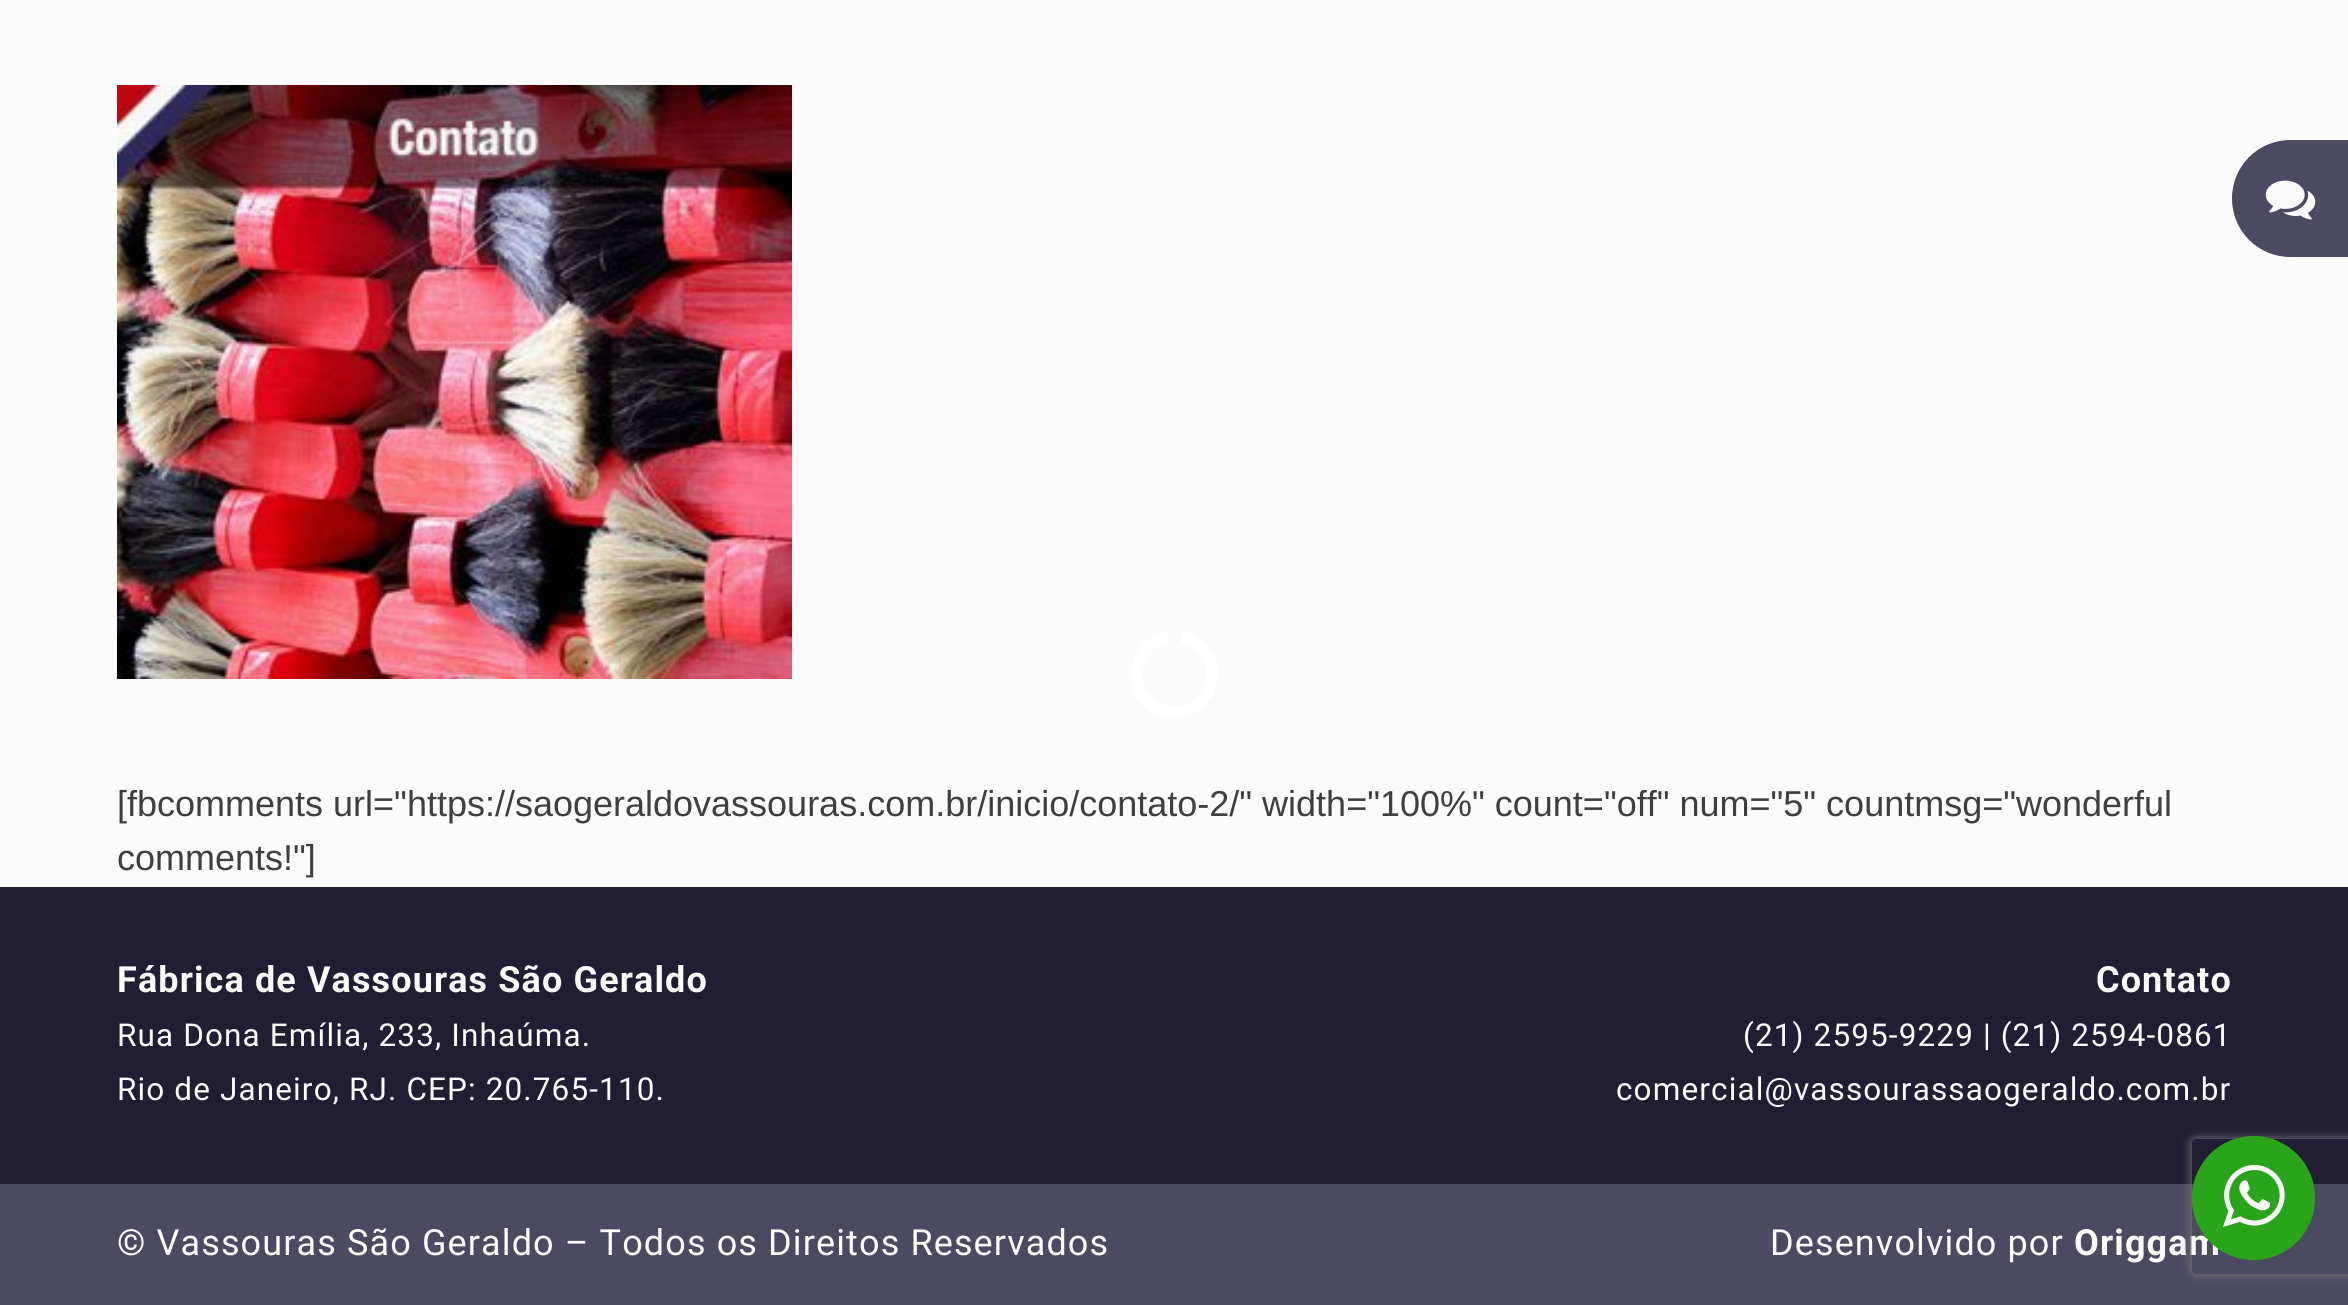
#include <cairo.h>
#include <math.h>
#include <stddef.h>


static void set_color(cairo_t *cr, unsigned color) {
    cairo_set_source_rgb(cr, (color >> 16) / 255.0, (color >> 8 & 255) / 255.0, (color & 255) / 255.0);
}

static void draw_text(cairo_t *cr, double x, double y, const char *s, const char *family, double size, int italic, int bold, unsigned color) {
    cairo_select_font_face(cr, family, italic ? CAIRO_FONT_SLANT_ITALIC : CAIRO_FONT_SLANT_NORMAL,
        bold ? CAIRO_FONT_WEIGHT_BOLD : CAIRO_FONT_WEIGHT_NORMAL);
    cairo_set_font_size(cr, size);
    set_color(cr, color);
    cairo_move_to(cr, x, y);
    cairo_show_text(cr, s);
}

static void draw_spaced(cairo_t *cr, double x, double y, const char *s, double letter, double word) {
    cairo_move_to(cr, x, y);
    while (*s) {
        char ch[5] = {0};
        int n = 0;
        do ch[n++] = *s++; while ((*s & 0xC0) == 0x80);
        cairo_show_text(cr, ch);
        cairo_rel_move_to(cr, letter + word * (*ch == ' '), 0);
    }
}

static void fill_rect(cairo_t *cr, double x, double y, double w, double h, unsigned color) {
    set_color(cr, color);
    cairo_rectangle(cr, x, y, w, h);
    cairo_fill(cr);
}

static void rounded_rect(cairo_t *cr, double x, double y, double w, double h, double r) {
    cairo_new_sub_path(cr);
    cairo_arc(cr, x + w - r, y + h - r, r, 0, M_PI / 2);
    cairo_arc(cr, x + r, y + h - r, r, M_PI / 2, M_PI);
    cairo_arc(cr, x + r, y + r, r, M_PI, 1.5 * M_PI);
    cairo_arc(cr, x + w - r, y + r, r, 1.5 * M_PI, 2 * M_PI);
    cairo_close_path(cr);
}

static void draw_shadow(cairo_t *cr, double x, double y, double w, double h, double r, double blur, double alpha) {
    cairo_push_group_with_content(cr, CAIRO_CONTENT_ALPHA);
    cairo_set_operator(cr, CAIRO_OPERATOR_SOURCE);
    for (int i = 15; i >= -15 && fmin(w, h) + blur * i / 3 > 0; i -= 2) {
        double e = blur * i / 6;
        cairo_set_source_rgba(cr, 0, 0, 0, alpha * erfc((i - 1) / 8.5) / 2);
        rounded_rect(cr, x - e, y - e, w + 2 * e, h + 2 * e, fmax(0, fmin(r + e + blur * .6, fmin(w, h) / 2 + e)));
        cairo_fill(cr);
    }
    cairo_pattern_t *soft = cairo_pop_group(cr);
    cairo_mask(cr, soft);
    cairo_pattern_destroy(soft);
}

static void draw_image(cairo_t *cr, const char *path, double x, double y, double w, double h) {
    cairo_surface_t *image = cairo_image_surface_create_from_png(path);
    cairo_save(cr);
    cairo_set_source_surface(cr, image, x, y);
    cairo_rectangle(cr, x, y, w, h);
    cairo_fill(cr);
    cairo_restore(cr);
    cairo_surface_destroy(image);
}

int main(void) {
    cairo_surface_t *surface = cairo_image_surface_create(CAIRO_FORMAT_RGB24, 2348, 1305);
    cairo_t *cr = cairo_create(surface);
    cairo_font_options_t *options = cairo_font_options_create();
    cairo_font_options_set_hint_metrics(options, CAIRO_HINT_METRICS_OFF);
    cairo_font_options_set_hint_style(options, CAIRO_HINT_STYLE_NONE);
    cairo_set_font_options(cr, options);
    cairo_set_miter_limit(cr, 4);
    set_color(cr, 0xFBFBFB);
    cairo_paint(cr);
    set_color(cr, 0xFFFFFF);
    cairo_new_path(cr);
    cairo_move_to(cr, 1218, 674);
    cairo_curve_to(cr, 1218, 724, 1148, 734, 1133, 687);
    cairo_curve_to(cr, 1130, 677, 1131, 666, 1135, 657);
    cairo_curve_to(cr, 1141, 643, 1153, 634, 1168, 631);
    cairo_line_to(cr, 1168, 643);
    cairo_curve_to(cr, 1148, 647, 1137, 668, 1145, 687);
    cairo_curve_to(cr, 1158, 717, 1203, 710, 1206, 678);
    cairo_curve_to(cr, 1207, 671, 1206, 664, 1203, 659);
    cairo_curve_to(cr, 1198, 650, 1190, 645, 1181, 643);
    cairo_line_to(cr, 1181, 631);
    cairo_curve_to(cr, 1202, 635, 1218, 653, 1218, 674);
    cairo_close_path(cr);
    cairo_fill(cr);
    draw_image(cr, "assets/img1.png", 117, 85, 675, 594);
    draw_text(cr, 117, 816, "[fbcomments url=\"https://saogeraldovassouras.com.br/inicio/contato-2/\" width=\"100%\" count=\"off\" num=\"5\" countmsg=\"wonderful", "Liberation Sans", 36, 0, 0, 0x3F3F40);
    draw_text(cr, 117, 870, "comments!\"]", "Liberation Sans", 36, 0, 0, 0x3F3F40);
    fill_rect(cr, 0, 887, 2348, 297, 0x211E34);
    cairo_select_font_face(cr, "Roboto", CAIRO_FONT_SLANT_NORMAL, CAIRO_FONT_WEIGHT_BOLD);
    set_color(cr, 0xFBFBFB);
    draw_spaced(cr, 117, 992, "Fábrica de Vassouras São Geraldo", 1.12, 0);
    cairo_select_font_face(cr, "Roboto", CAIRO_FONT_SLANT_NORMAL, CAIRO_FONT_WEIGHT_NORMAL);
    cairo_set_font_size(cr, 31.5);
    draw_spaced(cr, 117, 1046, "Rua Dona Emília, 233, Inhaúma.", 1.12, 0);
    draw_spaced(cr, 117, 1100, "Rio de Janeiro, RJ. CEP: 20.765-110.", 1.12, 0);
    set_color(cr, 0x4C4A60);
    cairo_new_path(cr);
    cairo_move_to(cr, 2290.5, 140);
    cairo_line_to(cr, 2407, 140);
    cairo_line_to(cr, 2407, 257);
    cairo_line_to(cr, 2290.5, 257);
    cairo_curve_to(cr, 2258, 257, 2232, 231, 2232, 198.5);
    cairo_curve_to(cr, 2232, 166, 2258, 140, 2290.5, 140);
    cairo_close_path(cr);
    cairo_fill(cr);
    draw_image(cr, "assets/img2.png", 2265, 180, 51, 40);
    cairo_select_font_face(cr, "Roboto", CAIRO_FONT_SLANT_NORMAL, CAIRO_FONT_WEIGHT_BOLD);
    cairo_set_font_size(cr, 36);
    set_color(cr, 0xFBFBFB);
    draw_spaced(cr, 2096, 992, "Contato", 1.12, 0);
    cairo_select_font_face(cr, "Roboto", CAIRO_FONT_SLANT_NORMAL, CAIRO_FONT_WEIGHT_NORMAL);
    cairo_set_font_size(cr, 31.5);
    draw_spaced(cr, 1743, 1046, "(21) 2595-9229 | (21) 2594-0861", 1.12, 0);
    draw_spaced(cr, 1616, 1100, "comercial@vassourassaogeraldo.com.br", 1.12, 0);
    fill_rect(cr, 0, 1184, 2348, 121, 0x4C4A60);
    cairo_set_font_size(cr, 36);
    set_color(cr, 0xFBFBFB);
    draw_spaced(cr, 117, 1255, "© Vassouras São Geraldo – Todos os Direitos Reservados", 1.12, 0);
    draw_spaced(cr, 1770, 1255, "Desenvolvido por", 1.12, 0);
    cairo_select_font_face(cr, "Roboto", CAIRO_FONT_SLANT_NORMAL, CAIRO_FONT_WEIGHT_BOLD);
    draw_spaced(cr, 2074, 1255, "Origgam", 1.12, 0);
    cairo_save(cr);
    cairo_set_fill_rule(cr, CAIRO_FILL_RULE_EVEN_ODD);
    cairo_new_path(cr);
    cairo_move_to(cr, 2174, 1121);
    cairo_line_to(cr, 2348, 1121);
    cairo_line_to(cr, 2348, 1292);
    cairo_line_to(cr, 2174, 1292);
    cairo_close_path(cr);
    cairo_move_to(cr, 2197, 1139);
    cairo_line_to(cr, 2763, 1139);
    cairo_curve_to(cr, 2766, 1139, 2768, 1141, 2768, 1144);
    cairo_line_to(cr, 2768, 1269);
    cairo_curve_to(cr, 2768, 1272, 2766, 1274, 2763, 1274);
    cairo_line_to(cr, 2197, 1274);
    cairo_curve_to(cr, 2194, 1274, 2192, 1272, 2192, 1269);
    cairo_line_to(cr, 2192, 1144);
    cairo_curve_to(cr, 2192, 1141, 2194, 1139, 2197, 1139);
    cairo_close_path(cr);
    cairo_clip(cr);
    set_color(cr, 0x7E7E7E);
    draw_shadow(cr, 2192, 1139, 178, 135, 5, 5.5, 1);
    cairo_restore(cr);
    set_color(cr, 0x2AA51B);
    rounded_rect(cr, 2192, 1136, 123, 124, 61.5);
    cairo_fill(cr);
    draw_image(cr, "assets/img3.png", 2223, 1164, 62, 64);
    cairo_surface_write_to_png(surface, "output.png");
    cairo_font_options_destroy(options);
    cairo_destroy(cr);
    cairo_surface_destroy(surface);
    return 0;
}
